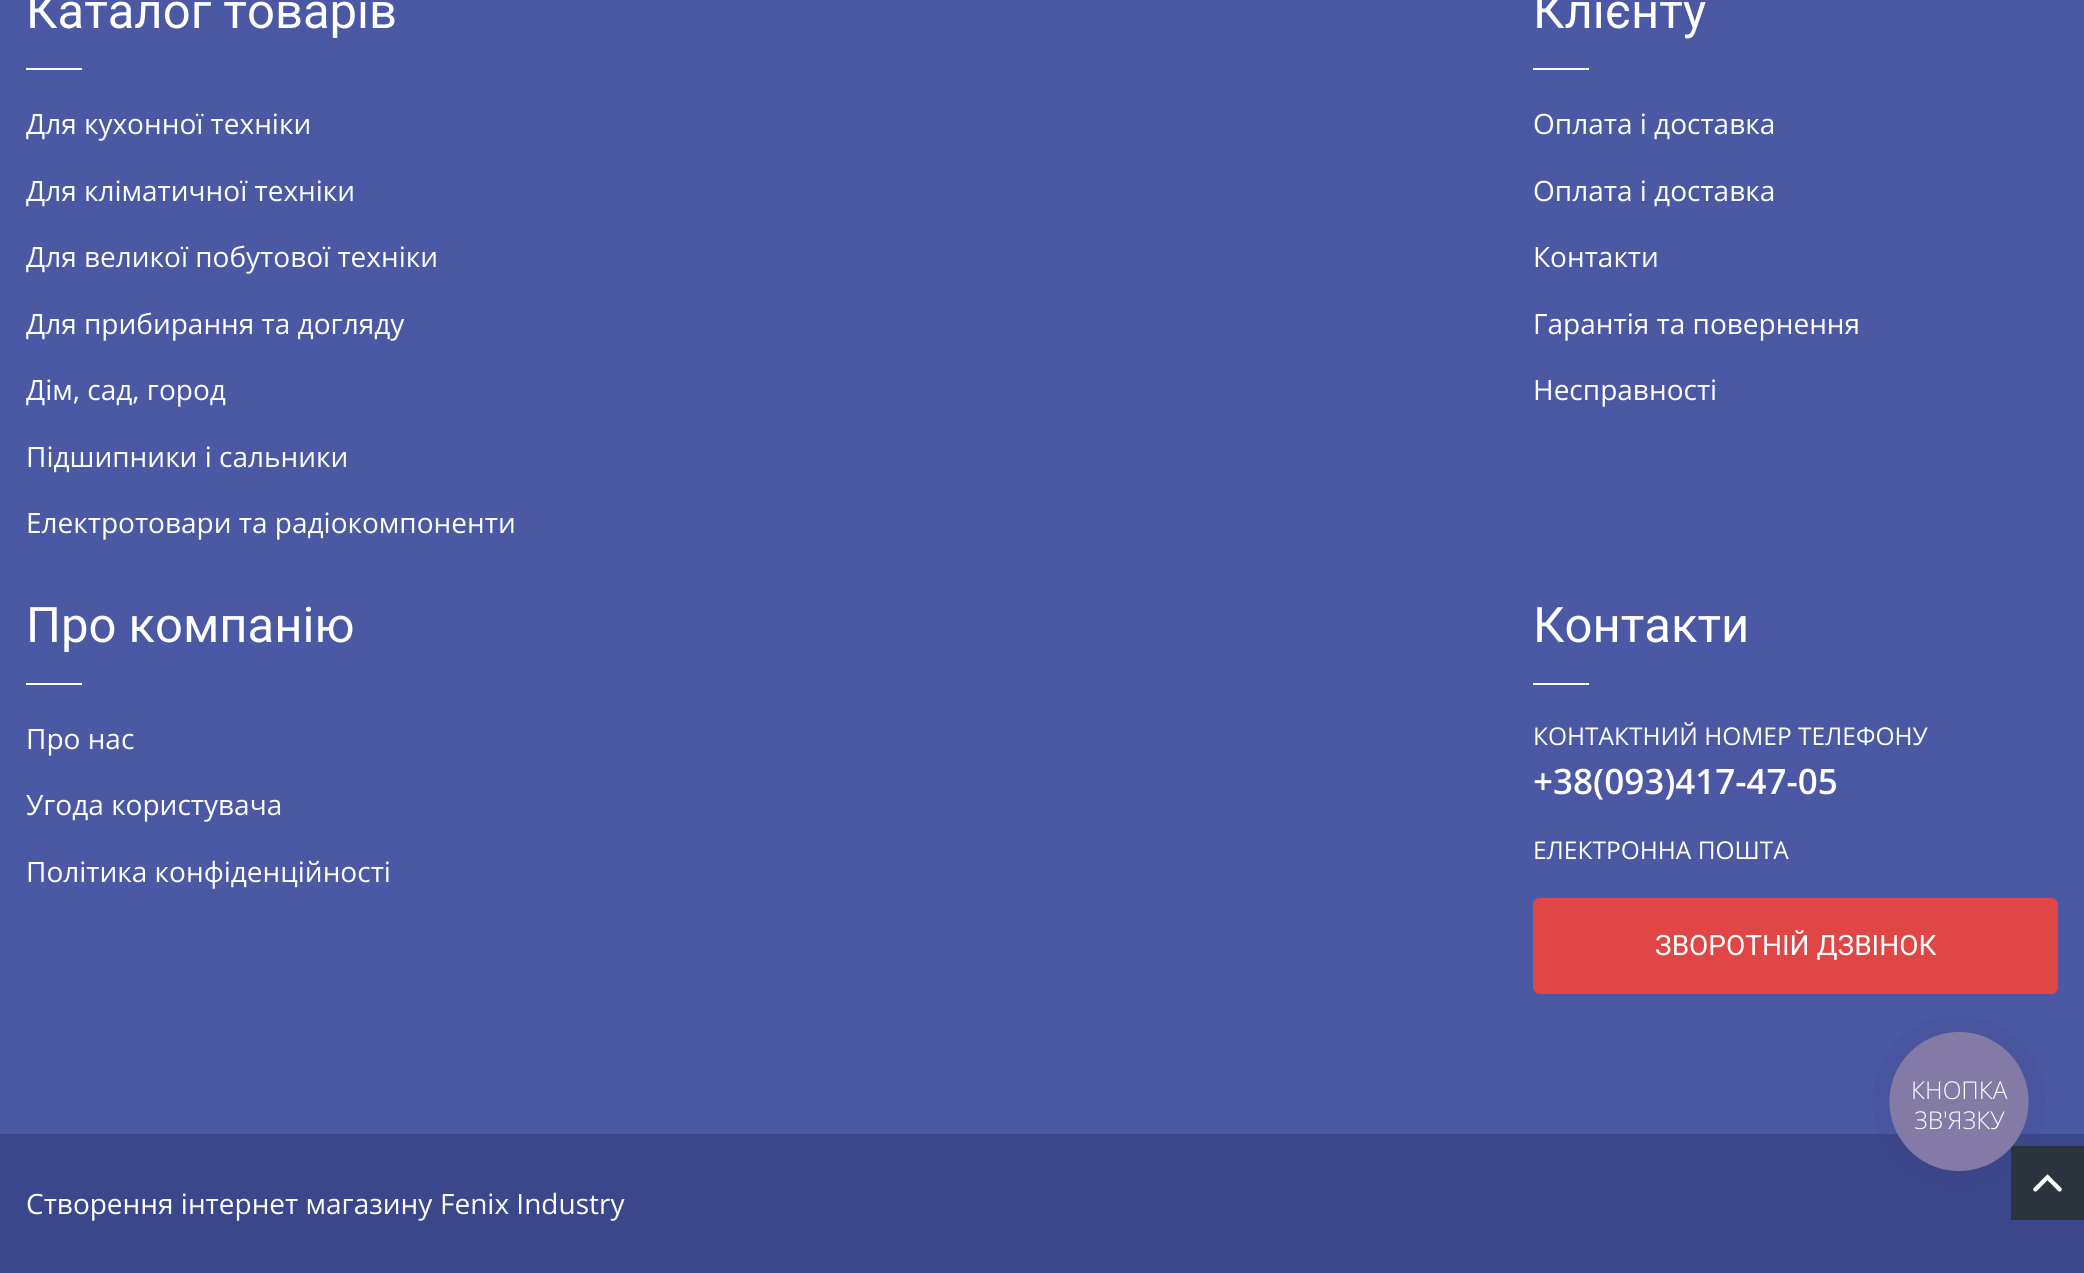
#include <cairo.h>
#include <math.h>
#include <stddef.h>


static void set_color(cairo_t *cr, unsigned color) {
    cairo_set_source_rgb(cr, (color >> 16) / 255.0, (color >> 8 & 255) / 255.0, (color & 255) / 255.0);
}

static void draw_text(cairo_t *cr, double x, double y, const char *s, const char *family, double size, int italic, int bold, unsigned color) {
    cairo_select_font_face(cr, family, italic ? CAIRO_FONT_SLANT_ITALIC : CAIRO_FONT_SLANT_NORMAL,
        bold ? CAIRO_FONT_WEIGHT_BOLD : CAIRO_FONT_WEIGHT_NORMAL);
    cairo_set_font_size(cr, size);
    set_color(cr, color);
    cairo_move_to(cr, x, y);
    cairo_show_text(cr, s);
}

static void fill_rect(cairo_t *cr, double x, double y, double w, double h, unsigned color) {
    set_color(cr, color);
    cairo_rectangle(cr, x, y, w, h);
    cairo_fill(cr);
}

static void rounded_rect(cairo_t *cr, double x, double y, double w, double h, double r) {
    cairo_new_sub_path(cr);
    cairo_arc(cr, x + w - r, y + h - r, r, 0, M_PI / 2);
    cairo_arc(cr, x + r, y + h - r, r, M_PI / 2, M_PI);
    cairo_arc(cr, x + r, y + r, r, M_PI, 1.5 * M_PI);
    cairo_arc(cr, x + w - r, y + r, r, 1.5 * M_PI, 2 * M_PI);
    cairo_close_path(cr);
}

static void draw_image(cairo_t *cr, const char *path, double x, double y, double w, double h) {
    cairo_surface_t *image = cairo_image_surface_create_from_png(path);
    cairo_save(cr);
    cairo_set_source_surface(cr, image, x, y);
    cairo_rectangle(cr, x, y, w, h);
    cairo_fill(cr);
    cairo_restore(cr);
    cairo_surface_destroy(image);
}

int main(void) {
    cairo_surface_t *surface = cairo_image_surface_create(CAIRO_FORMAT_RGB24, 2084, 1273);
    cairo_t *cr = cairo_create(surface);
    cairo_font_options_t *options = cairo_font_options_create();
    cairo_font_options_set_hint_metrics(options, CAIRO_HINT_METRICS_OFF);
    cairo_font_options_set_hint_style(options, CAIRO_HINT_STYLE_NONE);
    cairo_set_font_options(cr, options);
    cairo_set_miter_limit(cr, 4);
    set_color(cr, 0x4B58A4);
    cairo_paint(cr);
    draw_text(cr, 26, 28, "Каталог товарів", "Roboto", 49, 0, 0, 0xFFFFFF);
    fill_rect(cr, 26, 68, 56, 2, 0xFFFFFF);
    draw_text(cr, 26, 134, "Для кухонної техніки", "Open Sans", 28, 0, 0, 0xFFFFFF);
    draw_text(cr, 26, 201, "Для кліматичної техніки", "Open Sans", 28, 0, 0, 0xFFFFFF);
    draw_text(cr, 26, 267, "Для великої побутової техніки", "Open Sans", 28, 0, 0, 0xFFFFFF);
    draw_text(cr, 26, 334, "Для прибирання та догляду", "Open Sans", 28, 0, 0, 0xFFFFFF);
    draw_text(cr, 26, 400, "Дім, сад, город", "Open Sans", 28, 0, 0, 0xFFFFFF);
    draw_text(cr, 26, 467, "Підшипники і сальники", "Open Sans", 28, 0, 0, 0xFFFFFF);
    draw_text(cr, 26, 533, "Електротовари та радіокомпоненти", "Open Sans", 28, 0, 0, 0xFFFFFF);
    draw_text(cr, 1533, 28, "Клієнту", "Roboto", 49, 0, 0, 0xFFFFFF);
    fill_rect(cr, 1533, 68, 56, 2, 0xFFFFFF);
    draw_text(cr, 1533, 134, "Оплата і доставка", "Open Sans", 28, 0, 0, 0xFFFFFF);
    draw_text(cr, 1533, 201, "Оплата і доставка", "Open Sans", 28, 0, 0, 0xFFFFFF);
    draw_text(cr, 1533, 267, "Контакти", "Open Sans", 28, 0, 0, 0xFFFFFF);
    draw_text(cr, 1533, 334, "Гарантія та повернення", "Open Sans", 28, 0, 0, 0xFFFFFF);
    draw_text(cr, 1533, 400, "Несправності", "Open Sans", 28, 0, 0, 0xFFFFFF);
    draw_text(cr, 26, 642, "Про компанію", "Roboto", 49, 0, 0, 0xFFFFFF);
    fill_rect(cr, 26, 683, 56, 2, 0xFFFFFF);
    draw_text(cr, 26, 749, "Про нас", "Open Sans", 28, 0, 0, 0xFFFFFF);
    draw_text(cr, 26, 815, "Угода користувача", "Open Sans", 28, 0, 0, 0xFFFFFF);
    draw_text(cr, 26, 882, "Політика конфіденційності", "Open Sans", 28, 0, 0, 0xFFFFFF);
    draw_text(cr, 1533, 642, "Контакти", "Roboto", 49, 0, 0, 0xFFFFFF);
    fill_rect(cr, 1533, 683, 56, 2, 0xFFFFFF);
    draw_text(cr, 1533, 745, "КОНТАКТНИЙ НОМЕР ТЕЛЕФОНУ", "Open Sans", 24.5, 0, 0, 0xFFFFFF);
    draw_text(cr, 1533, 794, "+38(093)417-47-05", "Open Sans SemiBold", 35, 0, 0, 0xFFFFFF);
    draw_text(cr, 1533, 859, "ЕЛЕКТРОННА ПОШТА", "Open Sans", 24.5, 0, 0, 0xFFFFFF);
    set_color(cr, 0xE14646);
    rounded_rect(cr, 1534, 899, 523, 94, 6);
    cairo_fill_preserve(cr);
    cairo_stroke(cr);
    draw_text(cr, 1655, 955, "ЗВОРОТНІЙ ДЗВІНОК", "Roboto", 28, 0, 0, 0xFFFFFF);
    fill_rect(cr, 0, 1134, 2084, 139, 0x3B478B);
    draw_text(cr, 26, 1214, "Створення інтернет магазину", "Open Sans", 28, 0, 0, 0xFFFFFF);
    draw_text(cr, 440, 1214, "Fenix Industry", "Open Sans", 28, 0, 0, 0xFFFFFF);
    fill_rect(cr, 2011, 1146, 73, 74, 0x2B343C);
    draw_image(cr, "assets/img1.png", 2033, 1174, 29, 18);
    cairo_set_source_rgba(cr, 0.165, 0.251, 0.365, 0.06);
    cairo_arc(cr, 1959, 1101.5, 86.5, 0, 2 * M_PI);
    cairo_fill(cr);
    set_color(cr, 0x837BA6);
    cairo_arc(cr, 1959, 1101.5, 69.5, 0, 2 * M_PI);
    cairo_fill(cr);
    draw_text(cr, 1911, 1099, "КНОПКА", "Open Sans Light", 24.5, 0, 0, 0xFFFFFF);
    draw_text(cr, 1914, 1129, "ЗВ'ЯЗКУ", "Open Sans Light", 24.5, 0, 0, 0xFFFFFF);
    cairo_surface_write_to_png(surface, "output.png");
    cairo_font_options_destroy(options);
    cairo_destroy(cr);
    cairo_surface_destroy(surface);
    return 0;
}
